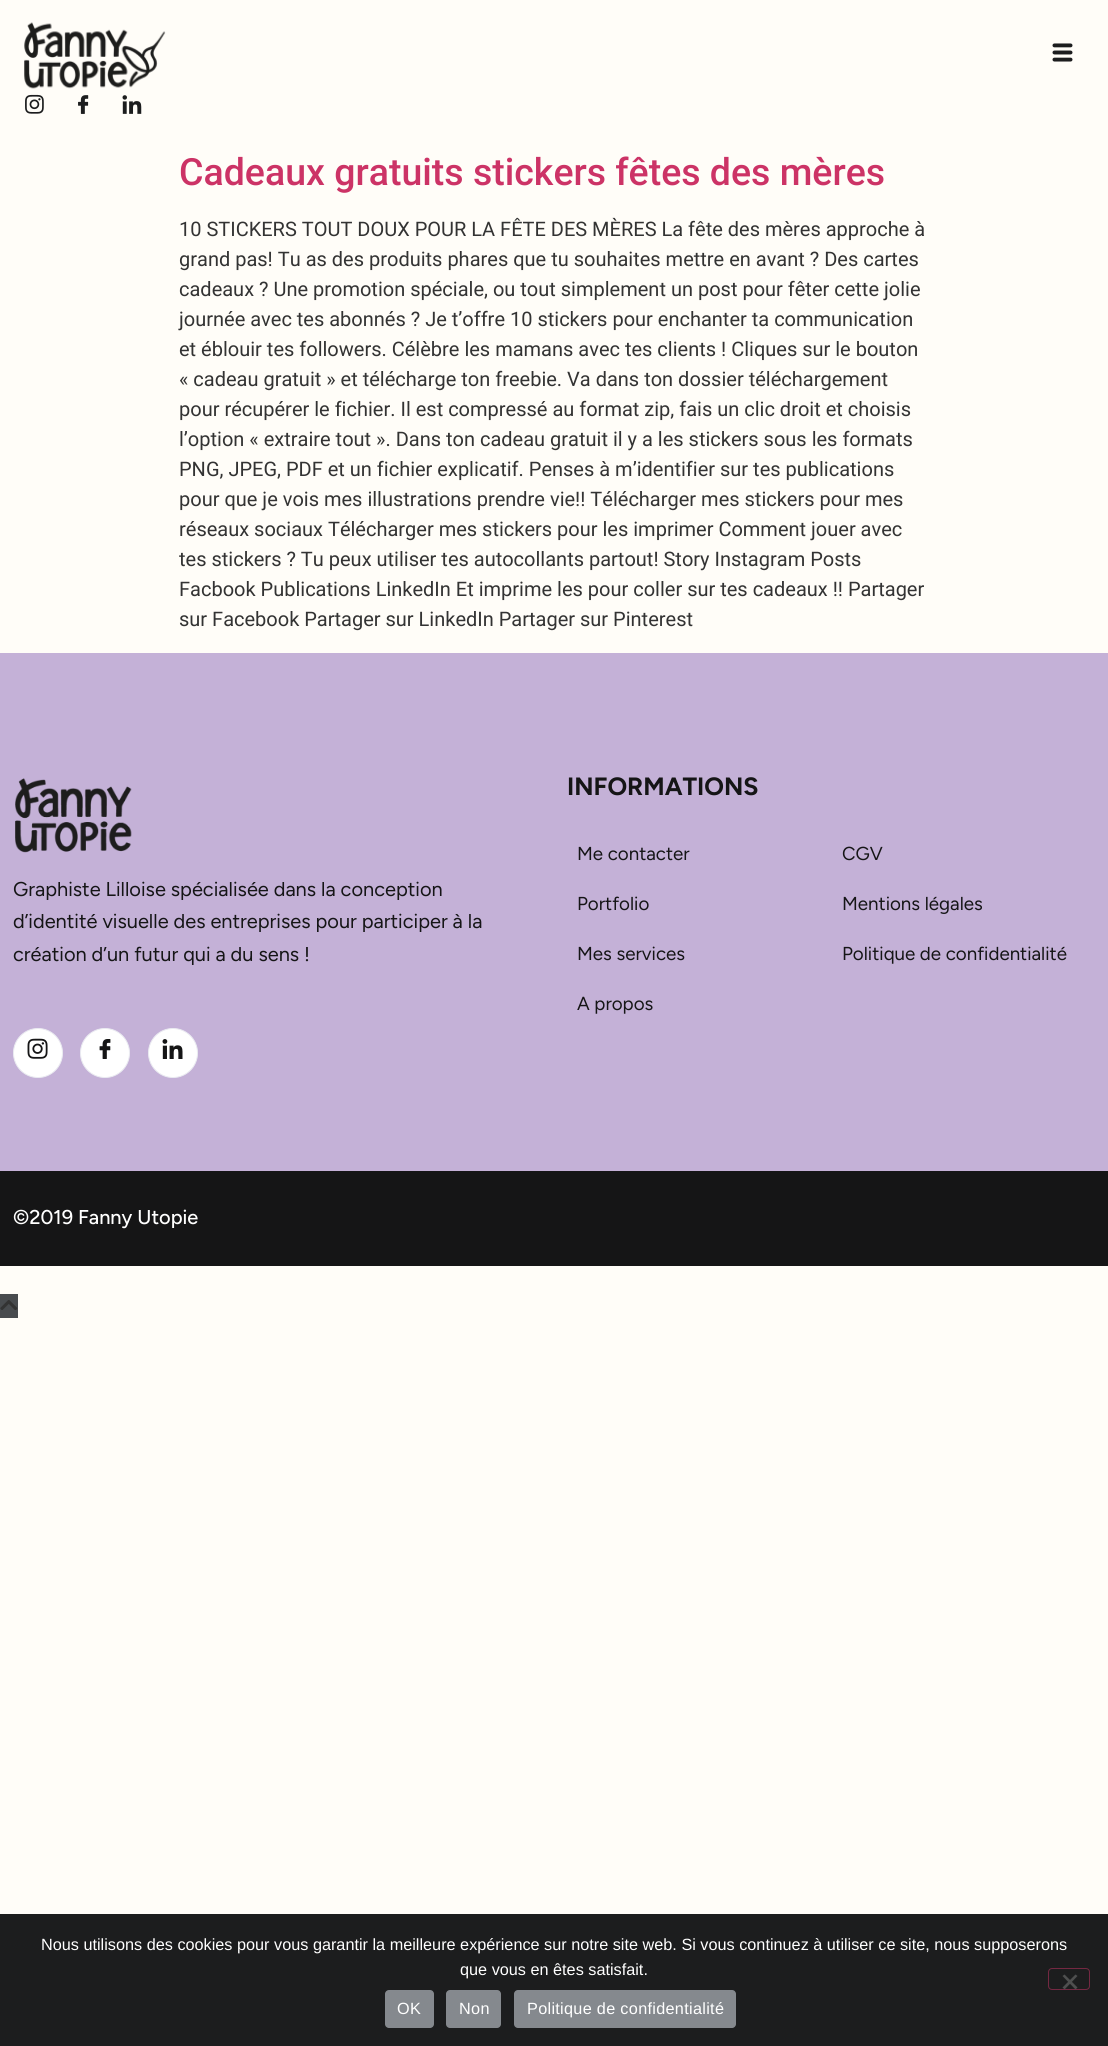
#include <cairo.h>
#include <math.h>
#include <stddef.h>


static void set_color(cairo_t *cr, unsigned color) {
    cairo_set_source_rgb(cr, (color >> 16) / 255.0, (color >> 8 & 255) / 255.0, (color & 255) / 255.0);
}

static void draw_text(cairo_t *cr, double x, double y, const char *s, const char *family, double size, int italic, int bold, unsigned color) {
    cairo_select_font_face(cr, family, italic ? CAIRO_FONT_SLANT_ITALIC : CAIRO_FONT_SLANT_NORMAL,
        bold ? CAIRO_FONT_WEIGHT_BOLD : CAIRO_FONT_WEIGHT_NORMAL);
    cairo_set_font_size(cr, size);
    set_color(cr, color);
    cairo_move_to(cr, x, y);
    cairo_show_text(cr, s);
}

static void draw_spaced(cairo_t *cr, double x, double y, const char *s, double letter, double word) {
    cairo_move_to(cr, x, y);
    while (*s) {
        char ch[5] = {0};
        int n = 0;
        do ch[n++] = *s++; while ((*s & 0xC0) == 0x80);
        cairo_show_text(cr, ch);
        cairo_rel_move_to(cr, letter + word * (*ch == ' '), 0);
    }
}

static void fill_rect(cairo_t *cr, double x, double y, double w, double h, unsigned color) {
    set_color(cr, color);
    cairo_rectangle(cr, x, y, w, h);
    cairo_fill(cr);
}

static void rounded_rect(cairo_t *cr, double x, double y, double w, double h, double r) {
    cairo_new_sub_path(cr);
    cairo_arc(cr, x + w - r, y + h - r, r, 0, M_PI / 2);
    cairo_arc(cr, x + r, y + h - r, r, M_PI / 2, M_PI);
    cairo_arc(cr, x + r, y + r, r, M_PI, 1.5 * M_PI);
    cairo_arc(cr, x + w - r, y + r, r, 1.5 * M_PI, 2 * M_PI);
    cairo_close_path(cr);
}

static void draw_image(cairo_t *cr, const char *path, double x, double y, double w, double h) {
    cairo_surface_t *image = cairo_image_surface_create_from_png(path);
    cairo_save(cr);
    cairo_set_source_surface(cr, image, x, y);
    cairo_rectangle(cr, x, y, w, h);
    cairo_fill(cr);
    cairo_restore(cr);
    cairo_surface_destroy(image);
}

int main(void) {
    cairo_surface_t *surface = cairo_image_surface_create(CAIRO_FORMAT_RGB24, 1108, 2046);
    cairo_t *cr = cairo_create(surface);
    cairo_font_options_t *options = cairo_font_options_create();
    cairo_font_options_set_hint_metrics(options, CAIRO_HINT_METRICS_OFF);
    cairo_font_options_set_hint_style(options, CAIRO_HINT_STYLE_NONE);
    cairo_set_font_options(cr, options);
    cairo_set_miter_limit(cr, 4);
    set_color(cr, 0xFFFDF8);
    cairo_paint(cr);
    draw_image(cr, "assets/img1.png", 24, 22, 142, 67);
    draw_image(cr, "assets/img2.png", 1052, 43, 21, 19);
    draw_image(cr, "assets/img3.png", 25, 94, 19, 20);
    draw_image(cr, "assets/img4.png", 78, 95, 11, 19);
    draw_image(cr, "assets/img5.png", 122, 95, 20, 19);
    draw_text(cr, 179, 185, "Cadeaux gratuits stickers fêtes des mères", "Roboto Medium", 37.5, 0, 0, 0xCC3366);
    draw_text(cr, 179, 236, "10 STICKERS TOUT DOUX POUR LA FÊTE DES MÈRES La fête des mères approche à", "Roboto", 20, 0, 0, 0x333333);
    draw_text(cr, 179, 266, "grand pas! Tu as des produits phares que tu souhaites mettre en avant ? Des cartes", "Roboto", 20, 0, 0, 0x333333);
    draw_text(cr, 179, 296, "cadeaux ? Une promotion spéciale, ou tout simplement un post pour fêter cette jolie", "Roboto", 20, 0, 0, 0x333333);
    draw_text(cr, 179, 326, "journée avec tes abonnés ? Je t’offre 10 stickers pour enchanter ta communication", "Roboto", 20, 0, 0, 0x333333);
    draw_text(cr, 179, 356, "et éblouir tes followers. Célèbre les mamans avec tes clients ! Cliques sur le bouton", "Roboto", 20, 0, 0, 0x333333);
    draw_text(cr, 179, 386, "« cadeau gratuit » et télécharge ton freebie. Va dans ton dossier téléchargement", "Roboto", 20, 0, 0, 0x333333);
    draw_text(cr, 179, 416, "pour récupérer le fichier. Il est compressé au format zip, fais un clic droit et choisis", "Roboto", 20, 0, 0, 0x333333);
    draw_text(cr, 179, 446, "l’option « extraire tout ». Dans ton cadeau gratuit il y a les stickers sous les formats", "Roboto", 20, 0, 0, 0x333333);
    draw_text(cr, 179, 476, "PNG, JPEG, PDF et un fichier explicatif. Penses à m’identifier sur tes publications", "Roboto", 20, 0, 0, 0x333333);
    draw_text(cr, 179, 506, "pour que je vois mes illustrations prendre vie!! Télécharger mes stickers pour mes", "Roboto", 20, 0, 0, 0x333333);
    draw_text(cr, 179, 536, "réseaux sociaux Télécharger mes stickers pour les imprimer Comment jouer avec", "Roboto", 20, 0, 0, 0x333333);
    draw_text(cr, 179, 566, "tes stickers ? Tu peux utiliser tes autocollants partout! Story Instagram Posts", "Roboto", 20, 0, 0, 0x333333);
    draw_text(cr, 179, 596, "Facbook Publications LinkedIn Et imprime les pour coller sur tes cadeaux !! Partager", "Roboto", 20, 0, 0, 0x333333);
    draw_text(cr, 179, 626, "sur Facebook Partager sur LinkedIn Partager sur Pinterest", "Roboto", 20, 0, 0, 0x333333);
    fill_rect(cr, 0, 653, 1108, 518, 0xC4B1D7);
    draw_image(cr, "assets/img6.png", 15, 778, 117, 75);
    draw_text(cr, 13, 896, "Graphiste Lilloise spécialisée dans la conception", "Figtree", 20, 0, 0, 0x151516);
    draw_text(cr, 13, 928, "d’identité visuelle des entreprises pour participer à la", "Figtree", 20, 0, 0, 0x151516);
    draw_text(cr, 13, 961, "création d’un futur qui a du sens !", "Figtree", 20, 0, 0, 0x151516);
    set_color(cr, 0xFFFFFF);
    cairo_new_path(cr);
    cairo_arc(cr, 38, 1053, 24.5, 0, 2 * M_PI);
    cairo_fill_preserve(cr);
    set_color(cr, 0xEAEBF1);
    cairo_set_line_width(cr, 1);
    cairo_stroke(cr);
    draw_image(cr, "assets/img7.png", 27, 1038, 21, 21);
    set_color(cr, 0xFFFFFF);
    cairo_arc(cr, 105, 1053, 24.5, 0, 2 * M_PI);
    cairo_fill_preserve(cr);
    set_color(cr, 0xEAEBF1);
    cairo_stroke(cr);
    draw_image(cr, "assets/img8.png", 99, 1039, 12, 20);
    set_color(cr, 0xFFFFFF);
    cairo_arc(cr, 173, 1053, 24.5, 0, 2 * M_PI);
    cairo_fill_preserve(cr);
    set_color(cr, 0xEAEBF1);
    cairo_stroke(cr);
    draw_image(cr, "assets/img9.png", 162, 1039, 21, 20);
    draw_text(cr, 567, 795, "INFORMATIONS", "Figtree", 25, 0, 1, 0x151516);
    draw_text(cr, 577, 860, "Me contacter", "Figtree", 18.75, 0, 0, 0x151516);
    draw_text(cr, 577, 910, "Portfolio", "Figtree", 18.75, 0, 0, 0x151516);
    draw_text(cr, 577, 960, "Mes services", "Figtree", 18.75, 0, 0, 0x151516);
    draw_text(cr, 577, 1010, "A propos", "Figtree", 18.75, 0, 0, 0x151516);
    draw_text(cr, 842, 860, "CGV", "Figtree", 18.75, 0, 0, 0x151516);
    draw_text(cr, 842, 910, "Mentions légales", "Figtree", 18.75, 0, 0, 0x151516);
    draw_text(cr, 842, 960, "Politique de confidentialité", "Figtree", 18.75, 0, 0, 0x151516);
    fill_rect(cr, 0, 1171, 1108, 95, 0x151516);
    draw_text(cr, 13, 1224, "©2019 Fanny Utopie", "Figtree Medium", 20, 0, 0, 0xFFFFFF);
    fill_rect(cr, 0, 1294, 18, 24, 0x484B4E);
    draw_image(cr, "assets/img10.png", 0, 1300, 18, 10);
    fill_rect(cr, 0, 1914, 1108, 132, 0x1C1D1E);
    draw_text(cr, 41, 1950, "Nous utilisons des cookies pour vous garantir la meilleure expérience sur notre site web. Si vous continuez à utiliser ce site, nous supposerons", "Liberation Sans", 16.25, 0, 0, 0xFFFFFF);
    draw_text(cr, 460, 1975, "que vous en êtes satisfait.", "Liberation Sans", 16.25, 0, 0, 0xFFFFFF);
    rounded_rect(cr, 1048.5, 1968.5, 41, 21, 3.5);
    set_color(cr, 0x742842);
    cairo_stroke(cr);
    set_color(cr, 0x4E4F4F);
    cairo_new_path(cr);
    cairo_move_to(cr, 1075.5, 1974.5);
    cairo_line_to(cr, 1077.5, 1976);
    cairo_line_to(cr, 1064.5, 1989.5);
    cairo_line_to(cr, 1062.5, 1987.5);
    cairo_close_path(cr);
    cairo_fill(cr);
    cairo_new_path(cr);
    cairo_move_to(cr, 1062.5, 1976);
    cairo_line_to(cr, 1064.5, 1974.5);
    cairo_line_to(cr, 1077.5, 1987.5);
    cairo_line_to(cr, 1075.5, 1989.5);
    cairo_close_path(cr);
    cairo_fill(cr);
    set_color(cr, 0x85898E);
    rounded_rect(cr, 385, 1990, 49, 38, 4);
    cairo_fill(cr);
    set_color(cr, 0xFFFFFF);
    draw_spaced(cr, 397, 2014, "OK", 0.3, 0);
    set_color(cr, 0x85898E);
    rounded_rect(cr, 446, 1990, 55, 38, 4);
    cairo_fill(cr);
    set_color(cr, 0xFFFFFF);
    draw_spaced(cr, 459, 2014, "Non", 0.3, 0);
    set_color(cr, 0x85898E);
    rounded_rect(cr, 514, 1990, 222, 38, 4);
    cairo_fill(cr);
    set_color(cr, 0xFFFFFF);
    draw_spaced(cr, 527, 2014, "Politique de confidentialité", 0.3, 0);
    cairo_surface_write_to_png(surface, "output.png");
    cairo_font_options_destroy(options);
    cairo_destroy(cr);
    cairo_surface_destroy(surface);
    return 0;
}
